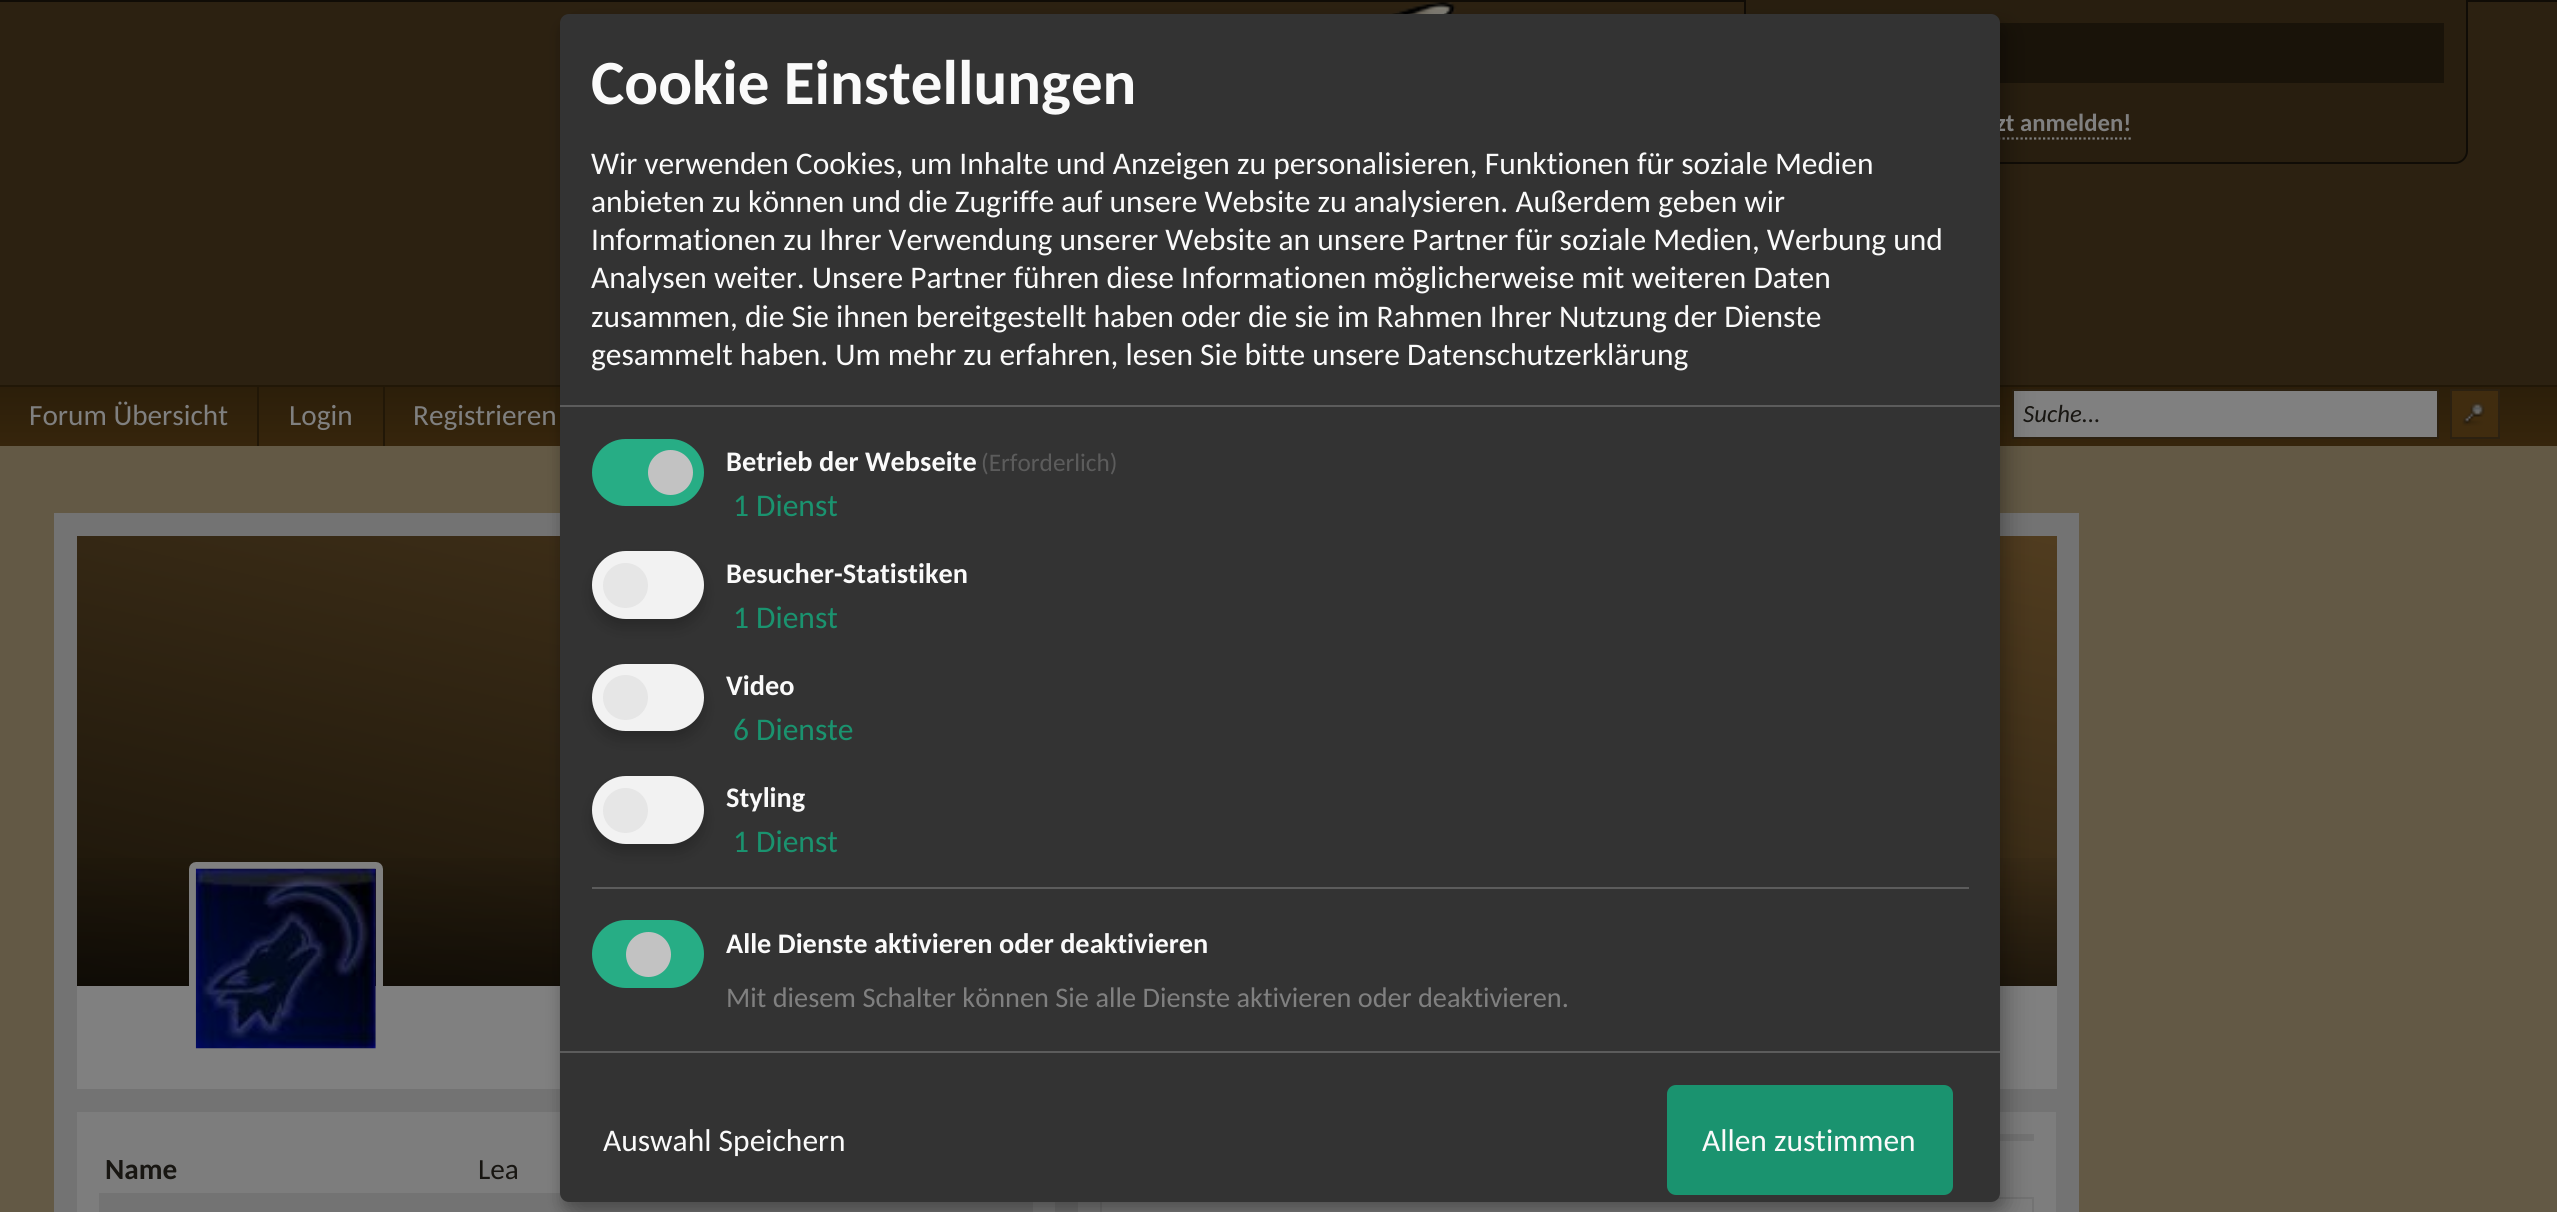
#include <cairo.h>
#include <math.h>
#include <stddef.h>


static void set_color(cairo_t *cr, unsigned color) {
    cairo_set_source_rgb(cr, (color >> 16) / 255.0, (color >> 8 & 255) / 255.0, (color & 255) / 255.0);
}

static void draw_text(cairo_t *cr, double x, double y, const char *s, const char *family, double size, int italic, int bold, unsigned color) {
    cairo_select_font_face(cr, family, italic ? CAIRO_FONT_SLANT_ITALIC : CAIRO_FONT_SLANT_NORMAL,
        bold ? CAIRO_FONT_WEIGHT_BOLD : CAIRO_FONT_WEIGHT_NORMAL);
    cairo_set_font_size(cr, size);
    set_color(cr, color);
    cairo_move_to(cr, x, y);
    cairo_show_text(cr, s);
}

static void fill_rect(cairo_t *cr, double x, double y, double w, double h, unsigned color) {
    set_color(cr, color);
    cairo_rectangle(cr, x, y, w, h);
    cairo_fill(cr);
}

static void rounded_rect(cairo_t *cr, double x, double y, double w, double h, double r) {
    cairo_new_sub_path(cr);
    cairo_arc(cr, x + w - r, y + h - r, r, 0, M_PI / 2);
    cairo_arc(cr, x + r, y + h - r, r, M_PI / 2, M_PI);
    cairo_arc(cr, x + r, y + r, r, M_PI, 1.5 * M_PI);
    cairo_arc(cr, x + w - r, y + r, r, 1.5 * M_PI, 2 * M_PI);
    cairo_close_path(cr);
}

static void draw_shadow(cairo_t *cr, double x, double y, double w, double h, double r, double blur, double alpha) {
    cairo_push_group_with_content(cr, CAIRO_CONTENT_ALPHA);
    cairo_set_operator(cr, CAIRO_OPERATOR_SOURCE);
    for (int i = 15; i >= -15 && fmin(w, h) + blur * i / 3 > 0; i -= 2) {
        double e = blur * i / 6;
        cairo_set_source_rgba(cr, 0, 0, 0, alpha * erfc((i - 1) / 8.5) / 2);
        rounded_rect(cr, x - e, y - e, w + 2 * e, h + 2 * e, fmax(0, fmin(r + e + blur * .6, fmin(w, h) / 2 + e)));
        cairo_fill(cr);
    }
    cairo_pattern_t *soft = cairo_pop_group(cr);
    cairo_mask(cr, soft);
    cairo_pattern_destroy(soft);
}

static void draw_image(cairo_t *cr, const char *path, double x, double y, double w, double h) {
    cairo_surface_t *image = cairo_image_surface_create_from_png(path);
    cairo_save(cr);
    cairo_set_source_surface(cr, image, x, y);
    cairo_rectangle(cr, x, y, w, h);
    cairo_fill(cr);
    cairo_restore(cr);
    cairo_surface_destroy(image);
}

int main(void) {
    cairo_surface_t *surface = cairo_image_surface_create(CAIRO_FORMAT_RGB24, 2557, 1212);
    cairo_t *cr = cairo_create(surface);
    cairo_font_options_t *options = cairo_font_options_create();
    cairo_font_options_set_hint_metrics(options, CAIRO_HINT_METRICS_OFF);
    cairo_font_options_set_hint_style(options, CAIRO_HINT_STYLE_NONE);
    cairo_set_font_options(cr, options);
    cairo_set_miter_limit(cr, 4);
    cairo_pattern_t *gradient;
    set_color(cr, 0x635945);
    cairo_paint(cr);
    fill_rect(cr, 0, 0, 2557, 2, 0x100C06);
    fill_rect(cr, 0, 2, 2557, 383, 0x2C2111);
    set_color(cr, 0x281E0F);
    cairo_new_path(cr);
    cairo_move_to(cr, 1744, 0);
    cairo_line_to(cr, 2468, 0);
    cairo_line_to(cr, 2468, 150);
    cairo_curve_to(cr, 2468, 157.5, 2461.5, 164, 2454, 164);
    cairo_line_to(cr, 1758, 164);
    cairo_curve_to(cr, 1750.5, 164, 1744, 157.5, 1744, 150);
    cairo_close_path(cr);
    cairo_fill(cr);
    set_color(cr, 0x100C06);
    cairo_set_fill_rule(cr, CAIRO_FILL_RULE_EVEN_ODD);
    cairo_new_path(cr);
    cairo_move_to(cr, 1744, 0);
    cairo_line_to(cr, 2468, 0);
    cairo_line_to(cr, 2468, 151);
    cairo_curve_to(cr, 2468, 158, 2462, 164, 2455, 164);
    cairo_line_to(cr, 1757, 164);
    cairo_curve_to(cr, 1750, 164, 1744, 158, 1744, 151);
    cairo_close_path(cr);
    cairo_move_to(cr, 1746, 0);
    cairo_line_to(cr, 2466, 0);
    cairo_line_to(cr, 2466, 151);
    cairo_curve_to(cr, 2466, 157, 2461, 162, 2455, 162);
    cairo_line_to(cr, 1757, 162);
    cairo_curve_to(cr, 1751, 162, 1746, 157, 1746, 151);
    cairo_close_path(cr);
    cairo_fill(cr);
    fill_rect(cr, 2000, 23, 444, 60, 0x191309);
    cairo_new_path(cr);
    cairo_move_to(cr, 1966.5, 138.5);
    cairo_line_to(cr, 2131, 138.5);
    set_color(cr, 0x808080);
    cairo_set_line_width(cr, 2.2);
    cairo_set_dash(cr, (double[]){2.25, 2.25}, 2, 0);
    cairo_stroke(cr);
    draw_image(cr, "assets/img1.png", 1388, 2, 69, 12);
    gradient = cairo_pattern_create_linear(0, 385, 0, 446);
    cairo_pattern_add_color_stop_rgba(gradient, 0, 0.169, 0.118, 0.039, 1);
    cairo_pattern_add_color_stop_rgba(gradient, 1, 0.212, 0.145, 0.047, 1);
    cairo_set_source(cr, gradient);
    cairo_pattern_destroy(gradient);
    cairo_rectangle(cr, 0, 387, 2557, 59);
    cairo_fill(cr);
    fill_rect(cr, 0, 385, 2557, 2, 0x211707);
    set_color(cr, 0x808080);
    cairo_rectangle(cr, 2013, 390, 425, 48);
    cairo_fill_preserve(cr);
    set_color(cr, 0x2C2111);
    cairo_set_line_width(cr, 2);
    cairo_set_dash(cr, NULL, 0, 0);
    cairo_stroke(cr);
    fill_rect(cr, 77, 1112, 1979, 100, 0x7D7D7D);
    cairo_rectangle(cr, 65.5, 524.5, 2002, 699);
    set_color(cr, 0x737373);
    cairo_set_line_width(cr, 23);
    cairo_stroke(cr);
    gradient = cairo_pattern_create_linear(969, 1188, 1164, 333);
    cairo_pattern_add_color_stop_rgba(gradient, 0, 0.098, 0.075, 0.035, 1);
    cairo_pattern_add_color_stop_rgba(gradient, 1, 0.314, 0.235, 0.122, 1);
    cairo_set_source(cr, gradient);
    cairo_pattern_destroy(gradient);
    cairo_rectangle(cr, 77, 536, 1980, 450);
    cairo_fill(cr);
    gradient = cairo_pattern_create_linear(1067, 986, 1067, 842);
    cairo_pattern_add_color_stop_rgba(gradient, 0, 0, 0, 0, 0.4);
    cairo_pattern_add_color_stop_rgba(gradient, 1, 0, 0, 0, 0);
    cairo_set_source(cr, gradient);
    cairo_pattern_destroy(gradient);
    cairo_rectangle(cr, 77, 858, 1980, 128);
    cairo_fill(cr);
    fill_rect(cr, 77, 986, 1980, 103, 0x808080);
    fill_rect(cr, 77, 1089, 483, 23, 0x737373);
    fill_rect(cr, 99, 1193, 934, 19, 0x737373);
    fill_rect(cr, 2000, 1089, 56, 23, 0x737373);
    fill_rect(cr, 1055, 1202, 23, 10, 0x737373);
    fill_rect(cr, 2000, 1134, 34, 7, 0x737373);
    cairo_rectangle(cr, 1101, 1198, 932, 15);
    cairo_set_line_width(cr, 2);
    cairo_stroke(cr);
    set_color(cr, 0x000000);
    draw_shadow(cr, 572, 25, 1440, 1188, 9, 11, 0.19);
    draw_shadow(cr, 560, 23, 1440, 1188, 9, 7, 0.2);
    draw_text(cr, 1996, 131, "zt anmelden!", "Carlito", 24.75, 0, 1, 0x808080);
    set_color(cr, 0x333333);
    rounded_rect(cr, 560, 14, 1440, 1188, 9);
    cairo_fill(cr);
    fill_rect(cr, 560, 405, 1440, 2, 0x5C5C5C);
    draw_text(cr, 591, 104, "Cookie Einstellungen", "Carlito", 63, 0, 1, 0xFAFAFA);
    draw_text(cr, 591, 174, "Wir verwenden Cookies, um Inhalte und Anzeigen zu personalisieren, Funktionen für soziale Medien", "Carlito", 31.5, 0, 0, 0xFAFAFA);
    draw_text(cr, 591, 212, "anbieten zu können und die Zugriffe auf unsere Website zu analysieren. Außerdem geben wir", "Carlito", 31.5, 0, 0, 0xFAFAFA);
    draw_text(cr, 591, 250, "Informationen zu Ihrer Verwendung unserer Website an unsere Partner für soziale Medien, Werbung und", "Carlito", 31.5, 0, 0, 0xFAFAFA);
    draw_text(cr, 591, 288, "Analysen weiter. Unsere Partner führen diese Informationen möglicherweise mit weiteren Daten", "Carlito", 31.5, 0, 0, 0xFAFAFA);
    draw_text(cr, 591, 327, "zusammen, die Sie ihnen bereitgestellt haben oder die sie im Rahmen Ihrer Nutzung der Dienste", "Carlito", 31.5, 0, 0, 0xFAFAFA);
    draw_text(cr, 591, 365, "gesammelt haben. Um mehr zu erfahren, lesen Sie bitte unsere Datenschutzerklärung", "Carlito", 31.5, 0, 0, 0xFAFAFA);
    set_color(cr, 0x27AD85);
    rounded_rect(cr, 592, 439, 112, 67, 33.5);
    cairo_fill(cr);
    set_color(cr, 0xC2C2C2);
    cairo_arc(cr, 670.5, 472.5, 22.5, 0, 2 * M_PI);
    cairo_fill(cr);
    draw_text(cr, 726, 471, "Betrieb der Webseite", "Carlito", 28.35, 0, 1, 0xFAFAFA);
    draw_text(cr, 981, 471, "(Erforderlich)", "Carlito", 25.25, 0, 0, 0x5C5C5C);
    draw_text(cr, 733, 516, "1 Dienst", "Carlito", 31.5, 0, 0, 0x1A936F);
    set_color(cr, 0x000000);
    draw_shadow(cr, 592, 560, 112, 68, 34, 7, 0.2);
    set_color(cr, 0xF2F2F2);
    rounded_rect(cr, 592, 551, 112, 68, 34);
    cairo_fill(cr);
    set_color(cr, 0xE6E6E6);
    cairo_arc(cr, 625.5, 585.5, 22.5, 0, 2 * M_PI);
    cairo_fill(cr);
    draw_text(cr, 726, 583, "Besucher-Statistiken", "Carlito", 28.35, 0, 1, 0xFAFAFA);
    draw_text(cr, 733, 628, "1 Dienst", "Carlito", 31.5, 0, 0, 0x1A936F);
    set_color(cr, 0x000000);
    draw_shadow(cr, 592, 673, 112, 67, 33.5, 7, 0.2);
    set_color(cr, 0xF2F2F2);
    rounded_rect(cr, 592, 664, 112, 67, 33.5);
    cairo_fill(cr);
    set_color(cr, 0xE6E6E6);
    cairo_arc(cr, 625.5, 697.5, 22.5, 0, 2 * M_PI);
    cairo_fill(cr);
    draw_text(cr, 726, 695, "Video", "Carlito", 28.35, 0, 1, 0xFAFAFA);
    draw_text(cr, 733, 740, "6 Dienste", "Carlito", 31.5, 0, 0, 0x1A936F);
    set_color(cr, 0x000000);
    draw_shadow(cr, 592, 785, 112, 68, 34, 7, 0.2);
    set_color(cr, 0xF2F2F2);
    rounded_rect(cr, 592, 776, 112, 68, 34);
    cairo_fill(cr);
    set_color(cr, 0xE6E6E6);
    cairo_arc(cr, 625.5, 810.5, 22.5, 0, 2 * M_PI);
    cairo_fill(cr);
    draw_text(cr, 726, 807, "Styling", "Carlito", 28.35, 0, 1, 0xFAFAFA);
    draw_text(cr, 733, 852, "1 Dienst", "Carlito", 31.5, 0, 0, 0x1A936F);
    fill_rect(cr, 592, 887, 1377, 2, 0x5C5C5C);
    set_color(cr, 0x27AD85);
    rounded_rect(cr, 592, 920, 112, 68, 34);
    cairo_fill(cr);
    set_color(cr, 0xC2C2C2);
    cairo_arc(cr, 648.5, 954.5, 22.5, 0, 2 * M_PI);
    cairo_fill(cr);
    draw_text(cr, 726, 953, "Alle Dienste aktivieren oder deaktivieren", "Carlito", 28.35, 0, 1, 0xFAFAFA);
    draw_text(cr, 726, 1007, "Mit diesem Schalter können Sie alle Dienste aktivieren oder deaktivieren.", "Carlito", 28.35, 0, 0, 0x808080);
    fill_rect(cr, 560, 1051, 1440, 2, 0x5C5C5C);
    draw_text(cr, 603, 1151, "Auswahl Speichern", "Carlito", 31.5, 0, 0, 0xFAFAFA);
    set_color(cr, 0x1A936F);
    rounded_rect(cr, 1667, 1085, 286, 110, 9);
    cairo_fill(cr);
    draw_text(cr, 1702, 1151, "Allen zustimmen", "Carlito", 31.5, 0, 0, 0xFAFAFA);
    draw_text(cr, 29, 425, "Forum Übersicht", "Carlito", 29.25, 0, 0, 0x808080);
    fill_rect(cr, 257, 385, 2, 61, 0x211707);
    draw_text(cr, 289, 425, "Login", "Carlito", 29.25, 0, 0, 0x808080);
    fill_rect(cr, 383, 385, 2, 61, 0x211707);
    draw_text(cr, 413, 425, "Registrieren", "Carlito", 29.25, 0, 0, 0x808080);
    draw_text(cr, 2023, 422, "Suche...", "Carlito", 24.75, 1, 0, 0x181612);
    fill_rect(cr, 2452, 391, 46, 46, 0x402C0F);
    draw_image(cr, "assets/img2.png", 2462, 402, 23, 24);
    cairo_rectangle(cr, 2451, 390, 48, 48);
    set_color(cr, 0x2C2111);
    cairo_stroke(cr);
    rounded_rect(cr, 192.5, 865.5, 187, 186, 3.5);
    set_color(cr, 0x808080);
    cairo_set_line_width(cr, 7);
    cairo_stroke(cr);
    draw_image(cr, "assets/img3.png", 195, 868, 181, 181);
    draw_text(cr, 105, 1179, "Name", "Carlito", 29.25, 0, 1, 0x181612);
    draw_text(cr, 478, 1179, "Lea", "Carlito", 29.25, 0, 0, 0x181612);
    cairo_surface_write_to_png(surface, "output.png");
    cairo_font_options_destroy(options);
    cairo_destroy(cr);
    cairo_surface_destroy(surface);
    return 0;
}
